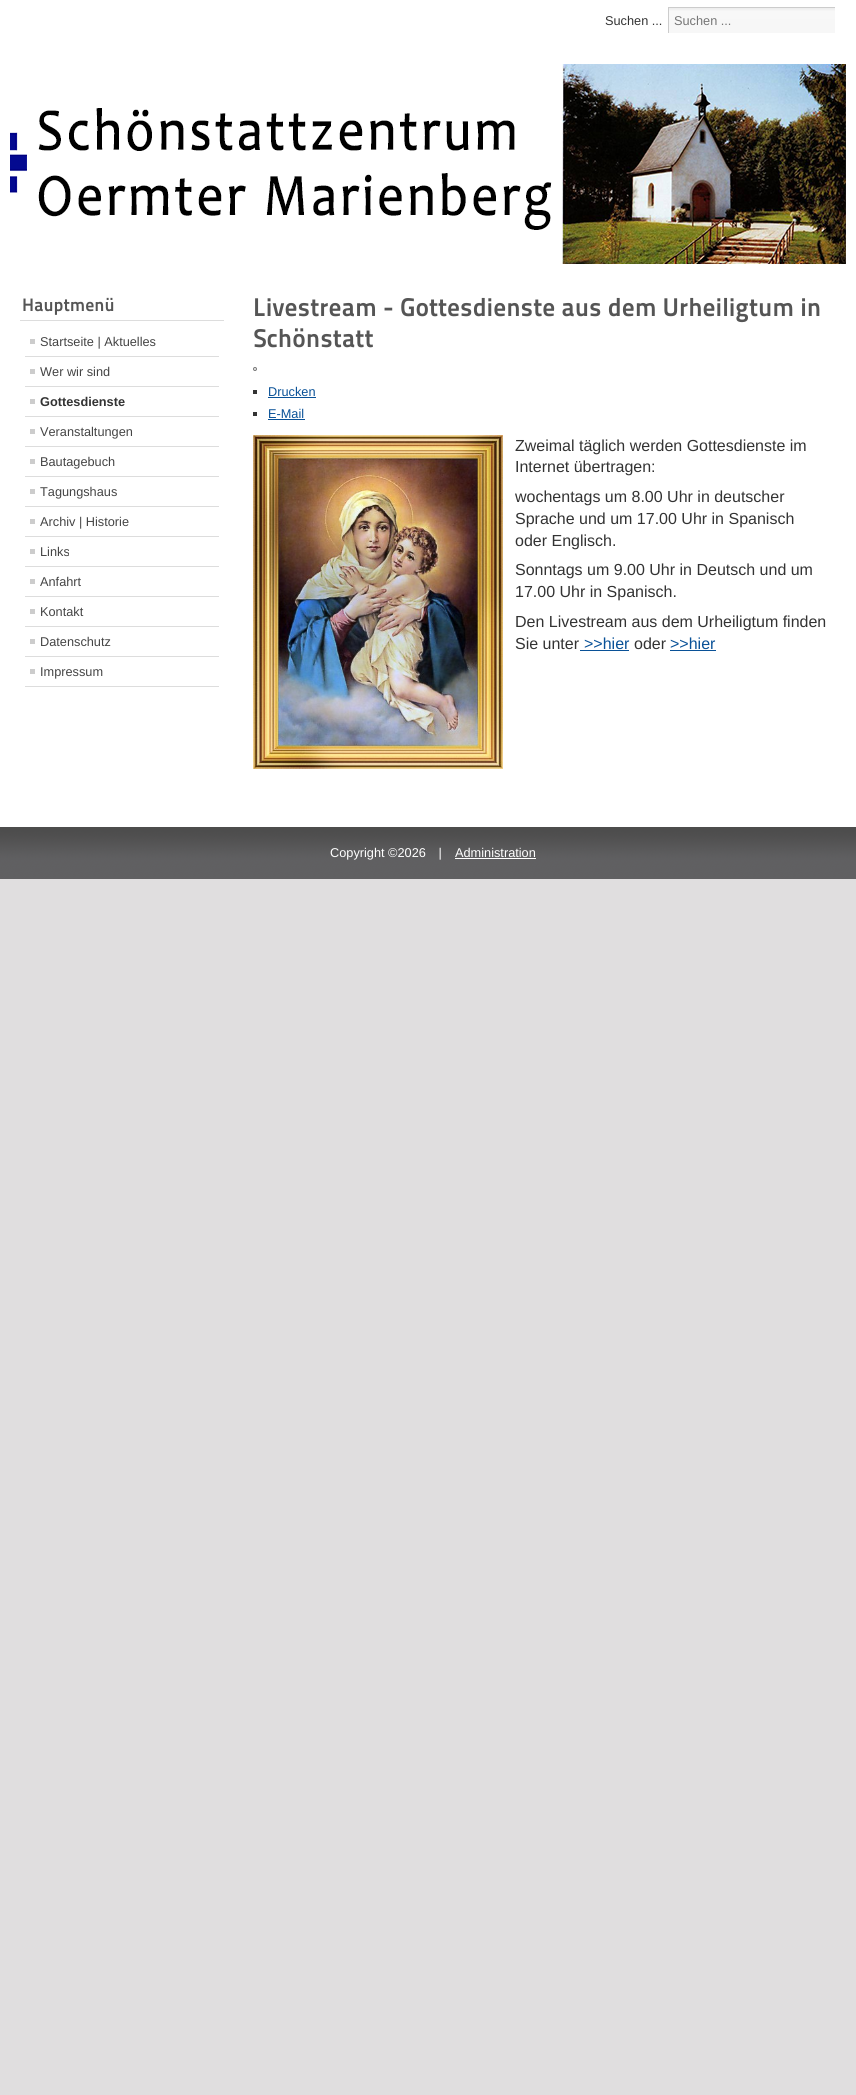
#include <cairo.h>
#include <math.h>
#include <stddef.h>


static void set_color(cairo_t *cr, unsigned color) {
    cairo_set_source_rgb(cr, (color >> 16) / 255.0, (color >> 8 & 255) / 255.0, (color & 255) / 255.0);
}

static void draw_text(cairo_t *cr, double x, double y, const char *s, const char *family, double size, int italic, int bold, unsigned color) {
    cairo_select_font_face(cr, family, italic ? CAIRO_FONT_SLANT_ITALIC : CAIRO_FONT_SLANT_NORMAL,
        bold ? CAIRO_FONT_WEIGHT_BOLD : CAIRO_FONT_WEIGHT_NORMAL);
    cairo_set_font_size(cr, size);
    set_color(cr, color);
    cairo_move_to(cr, x, y);
    cairo_show_text(cr, s);
}

static void fill_rect(cairo_t *cr, double x, double y, double w, double h, unsigned color) {
    set_color(cr, color);
    cairo_rectangle(cr, x, y, w, h);
    cairo_fill(cr);
}

static void draw_image(cairo_t *cr, const char *path, double x, double y, double w, double h) {
    cairo_surface_t *image = cairo_image_surface_create_from_png(path);
    cairo_save(cr);
    cairo_set_source_surface(cr, image, x, y);
    cairo_rectangle(cr, x, y, w, h);
    cairo_fill(cr);
    cairo_restore(cr);
    cairo_surface_destroy(image);
}

int main(void) {
    cairo_surface_t *surface = cairo_image_surface_create(CAIRO_FORMAT_RGB24, 856, 2095);
    cairo_t *cr = cairo_create(surface);
    cairo_font_options_t *options = cairo_font_options_create();
    cairo_font_options_set_hint_metrics(options, CAIRO_HINT_METRICS_OFF);
    cairo_font_options_set_hint_style(options, CAIRO_HINT_STYLE_NONE);
    cairo_set_font_options(cr, options);
    cairo_set_miter_limit(cr, 4);
    set_color(cr, 0xE0DEDF);
    cairo_paint(cr);
    fill_rect(cr, 0, 0, 856, 827, 0xFFFFFF);
    draw_text(cr, 605, 25, "Suchen ...", "Liberation Sans", 12.75, 0, 0, 0x333333);
    draw_image(cr, "assets/img1.png", 669, 8, 166, 25);
    fill_rect(cr, 668, 7, 167, 1, 0xCCCCCC);
    fill_rect(cr, 668, 7, 1, 26, 0xCCCCCC);
    draw_text(cr, 674, 25, "Suchen ...", "Liberation Sans", 12.75, 0, 0, 0x757575);
    draw_image(cr, "assets/img2.png", 10, 64, 836, 200);
    fill_rect(cr, 20, 320, 204, 1, 0xDDDDDD);
    draw_text(cr, 22, 311, "Hauptmenü", "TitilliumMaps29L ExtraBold", 18, 0, 0, 0x555555);
    fill_rect(cr, 25, 356, 194, 1, 0xDDDDDD);
    fill_rect(cr, 30, 339, 5, 5, 0xCCCCCC);
    draw_text(cr, 40, 346, "Startseite | Aktuelles", "Liberation Sans", 12.75, 0, 0, 0x444444);
    fill_rect(cr, 25, 386, 194, 1, 0xDDDDDD);
    fill_rect(cr, 30, 369, 5, 5, 0xCCCCCC);
    draw_text(cr, 40, 376, "Wer wir sind", "Liberation Sans", 12.75, 0, 0, 0x444444);
    fill_rect(cr, 25, 416, 194, 1, 0xDDDDDD);
    fill_rect(cr, 30, 399, 5, 5, 0xCCCCCC);
    draw_text(cr, 40, 406, "Gottesdienste", "Liberation Sans", 12.75, 0, 1, 0x333333);
    fill_rect(cr, 25, 446, 194, 1, 0xDDDDDD);
    fill_rect(cr, 30, 429, 5, 5, 0xCCCCCC);
    draw_text(cr, 40, 436, "Veranstaltungen", "Liberation Sans", 12.75, 0, 0, 0x444444);
    fill_rect(cr, 25, 476, 194, 1, 0xDDDDDD);
    fill_rect(cr, 30, 459, 5, 5, 0xCCCCCC);
    draw_text(cr, 40, 466, "Bautagebuch", "Liberation Sans", 12.75, 0, 0, 0x444444);
    fill_rect(cr, 25, 506, 194, 1, 0xDDDDDD);
    fill_rect(cr, 30, 489, 5, 5, 0xCCCCCC);
    draw_text(cr, 40, 496, "Tagungshaus", "Liberation Sans", 12.75, 0, 0, 0x444444);
    fill_rect(cr, 25, 536, 194, 1, 0xDDDDDD);
    fill_rect(cr, 30, 519, 5, 5, 0xCCCCCC);
    draw_text(cr, 40, 526, "Archiv | Historie", "Liberation Sans", 12.75, 0, 0, 0x444444);
    fill_rect(cr, 25, 566, 194, 1, 0xDDDDDD);
    fill_rect(cr, 30, 549, 5, 5, 0xCCCCCC);
    draw_text(cr, 40, 556, "Links", "Liberation Sans", 12.75, 0, 0, 0x444444);
    fill_rect(cr, 25, 596, 194, 1, 0xDDDDDD);
    fill_rect(cr, 30, 579, 5, 5, 0xCCCCCC);
    draw_text(cr, 40, 586, "Anfahrt", "Liberation Sans", 12.75, 0, 0, 0x444444);
    fill_rect(cr, 25, 626, 194, 1, 0xDDDDDD);
    fill_rect(cr, 30, 609, 5, 5, 0xCCCCCC);
    draw_text(cr, 40, 616, "Kontakt", "Liberation Sans", 12.75, 0, 0, 0x444444);
    fill_rect(cr, 25, 656, 194, 1, 0xDDDDDD);
    fill_rect(cr, 30, 639, 5, 5, 0xCCCCCC);
    draw_text(cr, 40, 646, "Datenschutz", "Liberation Sans", 12.75, 0, 0, 0x444444);
    fill_rect(cr, 25, 686, 194, 1, 0xDDDDDD);
    fill_rect(cr, 30, 669, 5, 5, 0xCCCCCC);
    draw_text(cr, 40, 676, "Impressum", "Liberation Sans", 12.75, 0, 0, 0x444444);
    draw_text(cr, 253, 316, "Livestream - Gottesdienste aus dem Urheiligtum in", "TitilliumMaps29L ExtraBold", 25.6, 0, 0, 0x555555);
    draw_text(cr, 253, 347, "Schönstatt", "TitilliumMaps29L ExtraBold", 25.6, 0, 0, 0x555555);
    set_color(cr, 0xEFEFEF);
    cairo_new_path(cr);
    cairo_arc(cr, 255, 369, 1.5, 0, 2 * M_PI);
    cairo_fill_preserve(cr);
    set_color(cr, 0x767676);
    cairo_set_line_width(cr, 1);
    cairo_stroke(cr);
    fill_rect(cr, 253, 390, 4, 4, 0x333333);
    draw_text(cr, 268, 396, "Drucken", "Liberation Sans", 12.75, 0, 0, 0x095197);
    fill_rect(cr, 268, 397, 48, 1, 0x095197);
    fill_rect(cr, 253, 412, 4, 4, 0x333333);
    draw_text(cr, 268, 418, "E-Mail", "Liberation Sans", 12.75, 0, 0, 0x095197);
    fill_rect(cr, 268, 419, 37, 1, 0x095197);
    draw_image(cr, "assets/img3.png", 253, 435, 250, 334);
    draw_text(cr, 515, 451, "Zweimal täglich werden Gottesdienste im", "Liberation Sans", 16, 0, 0, 0x333333);
    draw_text(cr, 515, 472, "Internet übertragen:", "Liberation Sans", 16, 0, 0, 0x333333);
    draw_text(cr, 515, 502, "wochentags um 8.00 Uhr in deutscher", "Liberation Sans", 16, 0, 0, 0x333333);
    draw_text(cr, 515, 524, "Sprache und um 17.00 Uhr in Spanisch", "Liberation Sans", 16, 0, 0, 0x333333);
    draw_text(cr, 515, 546, "oder Englisch.", "Liberation Sans", 16, 0, 0, 0x333333);
    draw_text(cr, 515, 575, "Sonntags um 9.00 Uhr in Deutsch und um", "Liberation Sans", 16, 0, 0, 0x333333);
    draw_text(cr, 515, 597, "17.00 Uhr in Spanisch.", "Liberation Sans", 16, 0, 0, 0x333333);
    draw_text(cr, 515, 627, "Den Livestream aus dem Urheiligtum finden", "Liberation Sans", 16, 0, 0, 0x333333);
    draw_text(cr, 515, 649, "Sie unter", "Liberation Sans", 16, 0, 0, 0x333333);
    fill_rect(cr, 580, 650, 49, 1, 0x095197);
    draw_text(cr, 584, 649, ">>hier", "Liberation Sans", 16, 0, 0, 0x095197);
    draw_text(cr, 634, 649, "oder", "Liberation Sans", 16, 0, 0, 0x333333);
    draw_text(cr, 670, 649, ">>hier", "Liberation Sans", 16, 0, 0, 0x095197);
    fill_rect(cr, 670, 650, 46, 1, 0x095197);
    draw_image(cr, "assets/img4.png", 0, 827, 856, 52);
    draw_text(cr, 330, 857, "Copyright ©2026 |", "Liberation Sans", 12.75, 0, 0, 0xFFFFFF);
    draw_text(cr, 455, 857, "Administration", "Liberation Sans", 12.75, 0, 0, 0xFFFFFF);
    fill_rect(cr, 455, 858, 81, 1, 0xFFFFFF);
    cairo_surface_write_to_png(surface, "output.png");
    cairo_font_options_destroy(options);
    cairo_destroy(cr);
    cairo_surface_destroy(surface);
    return 0;
}
